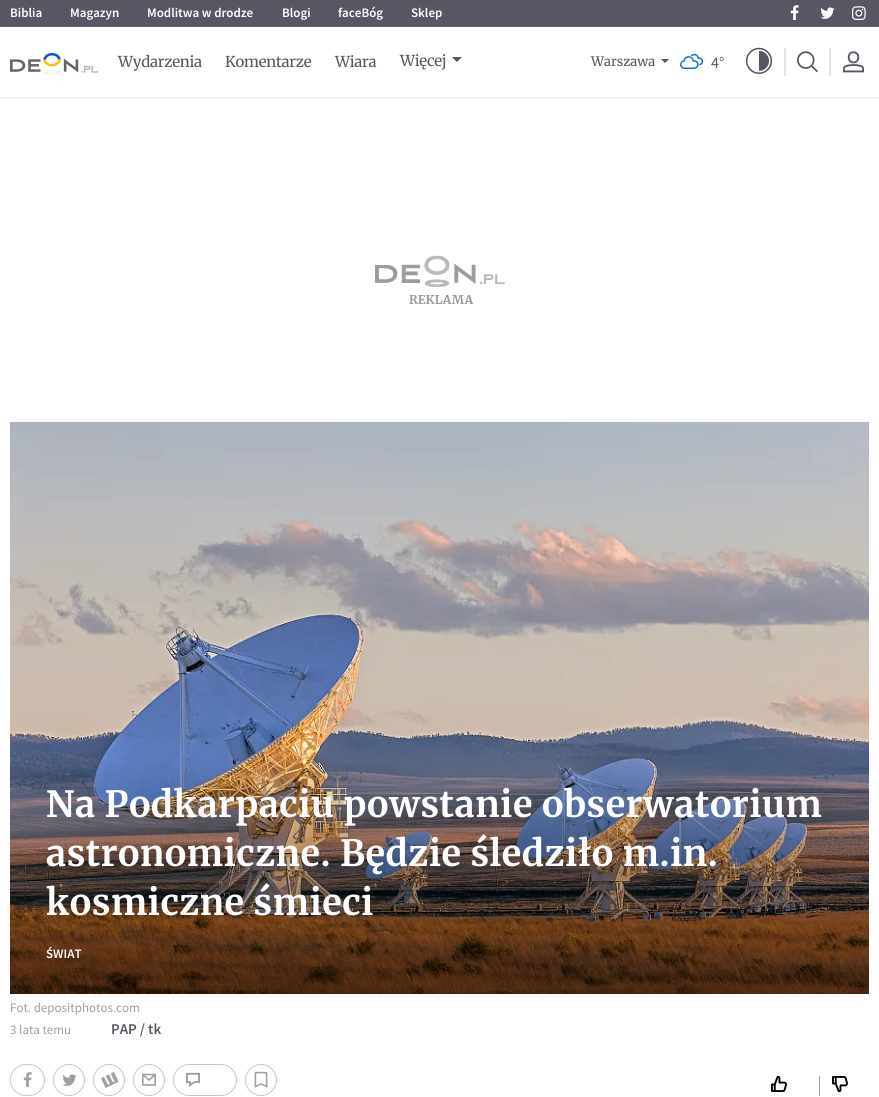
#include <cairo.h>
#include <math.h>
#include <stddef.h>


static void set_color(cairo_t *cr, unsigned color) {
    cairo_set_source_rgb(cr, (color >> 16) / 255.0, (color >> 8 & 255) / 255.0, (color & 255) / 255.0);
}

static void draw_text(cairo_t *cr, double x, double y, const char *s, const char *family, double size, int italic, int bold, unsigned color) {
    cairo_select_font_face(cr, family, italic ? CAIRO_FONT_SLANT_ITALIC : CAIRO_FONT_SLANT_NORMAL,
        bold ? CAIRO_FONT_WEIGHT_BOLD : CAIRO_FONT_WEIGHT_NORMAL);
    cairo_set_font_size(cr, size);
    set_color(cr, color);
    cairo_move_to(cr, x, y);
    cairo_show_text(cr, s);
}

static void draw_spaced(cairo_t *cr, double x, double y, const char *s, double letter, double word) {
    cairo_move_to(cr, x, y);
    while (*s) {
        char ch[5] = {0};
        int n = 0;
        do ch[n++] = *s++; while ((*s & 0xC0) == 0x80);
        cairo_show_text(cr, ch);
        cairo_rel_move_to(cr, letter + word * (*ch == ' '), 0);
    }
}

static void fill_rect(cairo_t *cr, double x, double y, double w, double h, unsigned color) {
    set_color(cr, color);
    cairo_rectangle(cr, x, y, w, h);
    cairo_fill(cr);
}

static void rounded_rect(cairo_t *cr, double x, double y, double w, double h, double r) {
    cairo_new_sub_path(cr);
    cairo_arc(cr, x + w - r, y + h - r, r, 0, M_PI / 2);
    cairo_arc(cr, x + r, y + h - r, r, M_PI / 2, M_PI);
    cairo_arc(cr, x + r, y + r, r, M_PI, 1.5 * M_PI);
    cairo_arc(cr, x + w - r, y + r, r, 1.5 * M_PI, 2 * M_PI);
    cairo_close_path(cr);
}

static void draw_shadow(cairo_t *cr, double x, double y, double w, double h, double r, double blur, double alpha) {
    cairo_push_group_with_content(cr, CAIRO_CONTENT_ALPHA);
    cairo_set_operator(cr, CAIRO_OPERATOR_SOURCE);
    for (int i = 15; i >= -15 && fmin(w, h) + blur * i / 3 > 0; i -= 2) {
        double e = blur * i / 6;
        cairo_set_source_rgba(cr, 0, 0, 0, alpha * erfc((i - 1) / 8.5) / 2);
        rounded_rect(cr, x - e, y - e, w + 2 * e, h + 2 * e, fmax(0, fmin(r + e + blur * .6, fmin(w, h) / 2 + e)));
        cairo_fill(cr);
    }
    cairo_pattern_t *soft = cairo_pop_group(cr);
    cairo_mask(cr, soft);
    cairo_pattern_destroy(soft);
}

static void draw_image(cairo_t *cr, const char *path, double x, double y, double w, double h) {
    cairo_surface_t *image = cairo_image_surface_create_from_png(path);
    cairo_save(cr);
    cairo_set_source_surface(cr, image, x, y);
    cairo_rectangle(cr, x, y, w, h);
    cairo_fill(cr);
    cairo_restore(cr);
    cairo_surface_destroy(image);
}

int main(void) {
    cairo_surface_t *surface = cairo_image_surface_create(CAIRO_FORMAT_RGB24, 879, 1097);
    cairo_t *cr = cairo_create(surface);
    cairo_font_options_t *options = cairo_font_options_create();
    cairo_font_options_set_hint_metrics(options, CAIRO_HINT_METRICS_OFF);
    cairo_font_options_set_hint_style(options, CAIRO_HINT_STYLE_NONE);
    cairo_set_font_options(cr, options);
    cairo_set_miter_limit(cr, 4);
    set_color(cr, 0xFFFFFF);
    cairo_paint(cr);
    fill_rect(cr, 0, 0, 879, 27, 0x575764);
    draw_text(cr, 10, 17, "Biblia", "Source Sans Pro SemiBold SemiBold", 13, 0, 0, 0xFFFFFF);
    draw_text(cr, 70, 17, "Magazyn", "Source Sans Pro SemiBold SemiBold", 13, 0, 0, 0xFFFFFF);
    draw_text(cr, 147, 17, "Modlitwa w drodze", "Source Sans Pro SemiBold SemiBold", 13, 0, 0, 0xFFFFFF);
    draw_text(cr, 282, 17, "Blogi", "Source Sans Pro SemiBold SemiBold", 13, 0, 0, 0xFFFFFF);
    draw_text(cr, 338, 17, "faceBóg", "Source Sans Pro SemiBold SemiBold", 13, 0, 0, 0xFFFFFF);
    draw_text(cr, 411, 17, "Sklep", "Source Sans Pro SemiBold SemiBold", 13, 0, 0, 0xFFFFFF);
    draw_image(cr, "assets/img1.png", 790, 5, 9, 15);
    draw_image(cr, "assets/img2.png", 820, 7, 15, 12);
    draw_image(cr, "assets/img3.png", 852, 6, 14, 14);
    cairo_save(cr);
    cairo_set_fill_rule(cr, CAIRO_FILL_RULE_EVEN_ODD);
    cairo_new_path(cr);
    cairo_move_to(cr, 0, 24);
    cairo_line_to(cr, 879, 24);
    cairo_line_to(cr, 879, 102);
    cairo_line_to(cr, 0, 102);
    cairo_close_path(cr);
    cairo_move_to(cr, 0, 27);
    cairo_line_to(cr, 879, 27);
    cairo_line_to(cr, 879, 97);
    cairo_line_to(cr, 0, 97);
    cairo_close_path(cr);
    cairo_clip(cr);
    set_color(cr, 0xDBE3EB);
    draw_shadow(cr, 0, 28, 879, 70, 0, 1, 1);
    cairo_restore(cr);
    draw_image(cr, "assets/img4.png", 10, 53, 88, 22);
    cairo_select_font_face(cr, "Merriweather", CAIRO_FONT_SLANT_NORMAL, CAIRO_FONT_WEIGHT_NORMAL);
    cairo_set_font_size(cr, 15);
    set_color(cr, 0x575764);
    draw_spaced(cr, 118, 67, "Wydarzenia", -0.25, 0);
    draw_spaced(cr, 225, 67, "Komentarze", -0.25, 0);
    draw_spaced(cr, 335, 67, "Wiara", -0.25, 0);
    draw_spaced(cr, 400, 66, "Więcej", -0.25, 0);
    cairo_new_path(cr);
    cairo_move_to(cr, 462, 57);
    cairo_line_to(cr, 457, 62);
    cairo_line_to(cr, 452, 57);
    cairo_close_path(cr);
    cairo_fill(cr);
    draw_text(cr, 591, 66, "Warszawa", "Merriweather", 13, 0, 0, 0x575764);
    cairo_new_path(cr);
    cairo_move_to(cr, 669, 59);
    cairo_line_to(cr, 665, 63);
    cairo_line_to(cr, 661, 59);
    cairo_close_path(cr);
    cairo_fill(cr);
    draw_image(cr, "assets/img5.png", 680, 53, 24, 16);
    draw_text(cr, 711, 68, "4°", "Source Sans Pro", 16, 0, 0, 0x575764);
    draw_image(cr, "assets/img6.png", 745, 47, 28, 27);
    fill_rect(cr, 784, 48, 2, 28, 0xDDE5ED);
    draw_image(cr, "assets/img7.png", 797, 51, 21, 22);
    fill_rect(cr, 829, 48, 2, 28, 0xDDE5ED);
    draw_image(cr, "assets/img8.png", 843, 51, 21, 22);
    draw_image(cr, "assets/img9.png", 375, 255, 130, 49);
    draw_image(cr, "assets/img10.png", 10, 422, 859, 572);
    cairo_select_font_face(cr, "Merriweather", CAIRO_FONT_SLANT_NORMAL, CAIRO_FONT_WEIGHT_BOLD);
    cairo_set_font_size(cr, 36);
    set_color(cr, 0xFFFFFF);
    draw_spaced(cr, 46, 817, "Na Podkarpaciu powstanie obserwatorium", 0.5, 0);
    draw_spaced(cr, 46, 866, "astronomiczne. Będzie śledziło m.in.", 0.5, 0);
    draw_spaced(cr, 46, 915, "kosmiczne śmieci", 0.5, 0);
    draw_text(cr, 46, 958, "ŚWIAT", "Source Sans Pro SemiBold SemiBold", 13, 0, 0, 0xFFFFFF);
    draw_text(cr, 10, 1012, "Fot. depositphotos.com", "Source Sans Pro", 13, 0, 0, 0x9F9F9F);
    draw_text(cr, 10, 1034, "3 lata temu", "Source Sans Pro", 13, 0, 0, 0x9F9F9F);
    draw_text(cr, 111, 1034, "PAP / tk", "Source Sans Pro SemiBold SemiBold", 15, 0, 0, 0x575764);
    rounded_rect(cr, 10.5, 1064.5, 34, 31, 15.5);
    set_color(cr, 0xC8C8C8);
    cairo_set_line_width(cr, 1);
    cairo_stroke(cr);
    draw_image(cr, "assets/img11.png", 23, 1072, 9, 15);
    cairo_arc(cr, 69, 1080, 15.5, 0, 2 * M_PI);
    cairo_stroke(cr);
    draw_image(cr, "assets/img12.png", 62, 1074, 15, 12);
    cairo_arc(cr, 109, 1080, 15.5, 0, 2 * M_PI);
    cairo_stroke(cr);
    draw_image(cr, "assets/img13.png", 101, 1072, 18, 16);
    cairo_arc(cr, 149, 1080, 15.5, 0, 2 * M_PI);
    cairo_stroke(cr);
    draw_image(cr, "assets/img14.png", 142, 1073, 14, 13);
    rounded_rect(cr, 173.5, 1064.5, 63, 31, 15.5);
    cairo_stroke(cr);
    draw_image(cr, "assets/img15.png", 186, 1072, 14, 15);
    cairo_arc(cr, 261, 1080, 15.5, 0, 2 * M_PI);
    cairo_stroke(cr);
    draw_image(cr, "assets/img16.png", 254, 1071, 14, 17);
    draw_image(cr, "assets/img17.png", 771, 1076, 16, 16);
    fill_rect(cr, 819, 1076, 1, 20, 0x9F9F9F);
    draw_image(cr, "assets/img18.png", 832, 1076, 16, 16);
    cairo_surface_write_to_png(surface, "output.png");
    cairo_font_options_destroy(options);
    cairo_destroy(cr);
    cairo_surface_destroy(surface);
    return 0;
}
